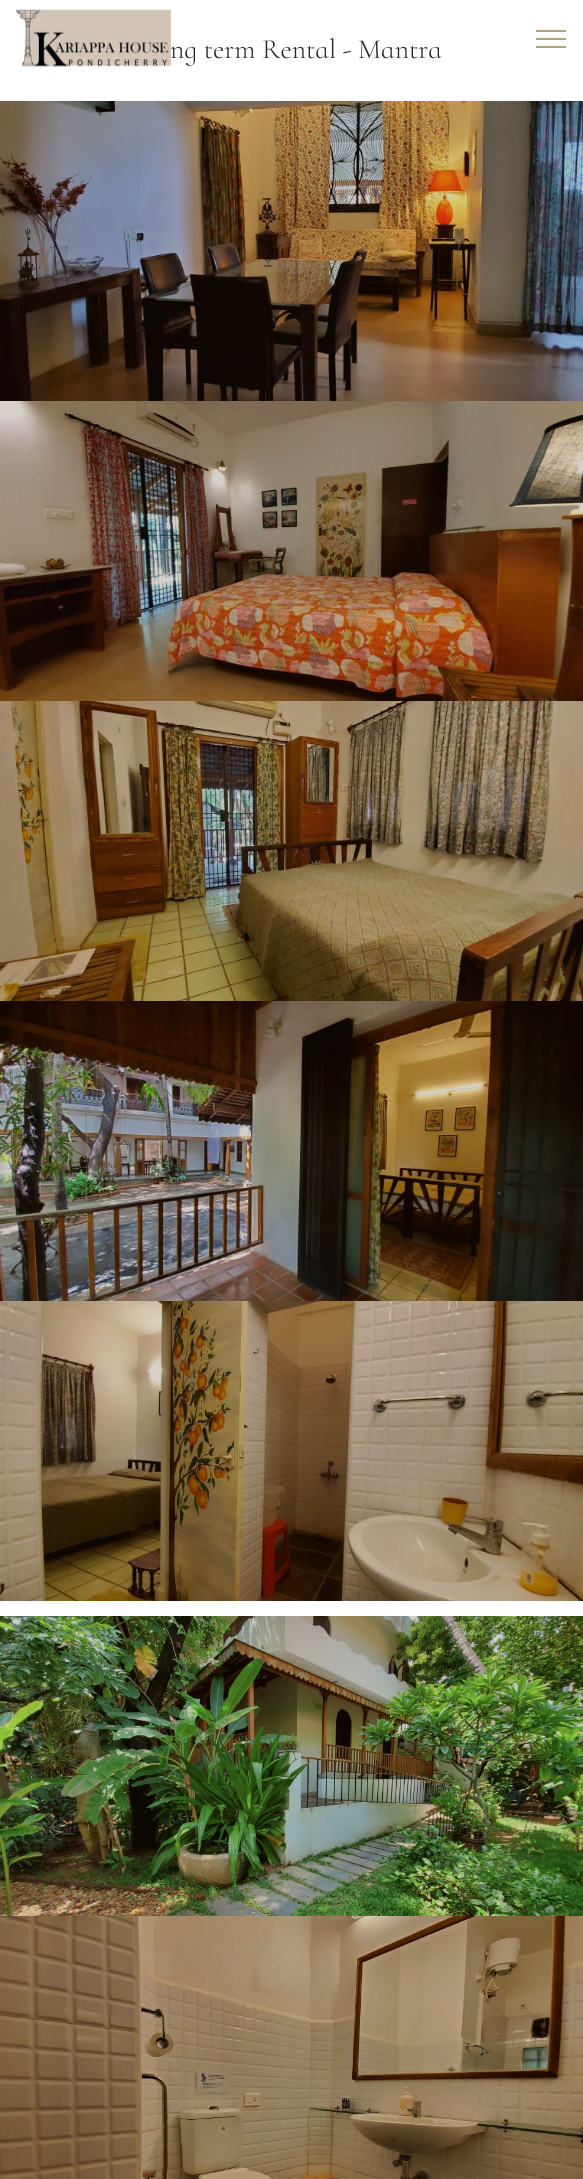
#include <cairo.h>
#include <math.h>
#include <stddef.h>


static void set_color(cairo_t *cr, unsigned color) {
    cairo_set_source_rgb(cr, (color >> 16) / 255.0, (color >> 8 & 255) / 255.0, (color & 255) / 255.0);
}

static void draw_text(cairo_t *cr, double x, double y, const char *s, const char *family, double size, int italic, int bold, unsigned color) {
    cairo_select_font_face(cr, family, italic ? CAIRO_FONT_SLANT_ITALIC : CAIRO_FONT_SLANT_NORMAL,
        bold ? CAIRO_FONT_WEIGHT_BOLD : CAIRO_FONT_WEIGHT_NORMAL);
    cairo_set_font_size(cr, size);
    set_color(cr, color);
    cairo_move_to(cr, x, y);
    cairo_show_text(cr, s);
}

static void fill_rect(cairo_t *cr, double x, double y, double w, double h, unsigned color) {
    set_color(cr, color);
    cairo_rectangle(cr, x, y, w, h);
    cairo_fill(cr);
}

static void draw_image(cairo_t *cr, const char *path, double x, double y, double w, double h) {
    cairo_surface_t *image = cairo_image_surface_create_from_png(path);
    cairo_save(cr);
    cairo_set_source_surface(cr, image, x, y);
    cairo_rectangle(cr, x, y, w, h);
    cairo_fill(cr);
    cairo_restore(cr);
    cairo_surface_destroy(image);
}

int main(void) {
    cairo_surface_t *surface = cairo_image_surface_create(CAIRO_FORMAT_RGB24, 583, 2179);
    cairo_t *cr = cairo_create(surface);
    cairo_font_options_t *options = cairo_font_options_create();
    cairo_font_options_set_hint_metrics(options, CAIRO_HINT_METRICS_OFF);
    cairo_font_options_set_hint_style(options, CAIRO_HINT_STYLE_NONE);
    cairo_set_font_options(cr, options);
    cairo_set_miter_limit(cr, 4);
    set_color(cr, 0xFFFFFF);
    cairo_paint(cr);
    draw_text(cr, 170, 58, "ng term Rental - Mantra", "Cormorant Infant Light", 27.75, 0, 0, 0x232323);
    draw_image(cr, "assets/img1.png", 16, 9, 155, 58);
    fill_rect(cr, 536, 30, 30, 2, 0xB1A374);
    fill_rect(cr, 536, 38, 30, 2, 0xB1A374);
    fill_rect(cr, 536, 46, 30, 2, 0xB1A374);
    draw_image(cr, "assets/img2.png", 0, 101, 583, 300);
    draw_image(cr, "assets/img3.png", 0, 401, 583, 300);
    draw_image(cr, "assets/img4.png", 0, 701, 583, 300);
    draw_image(cr, "assets/img5.png", 0, 1001, 583, 300);
    draw_image(cr, "assets/img6.png", 0, 1301, 583, 300);
    draw_image(cr, "assets/img7.png", 0, 1616, 583, 300);
    draw_image(cr, "assets/img8.png", 0, 1916, 583, 263);
    cairo_surface_write_to_png(surface, "output.png");
    cairo_font_options_destroy(options);
    cairo_destroy(cr);
    cairo_surface_destroy(surface);
    return 0;
}
